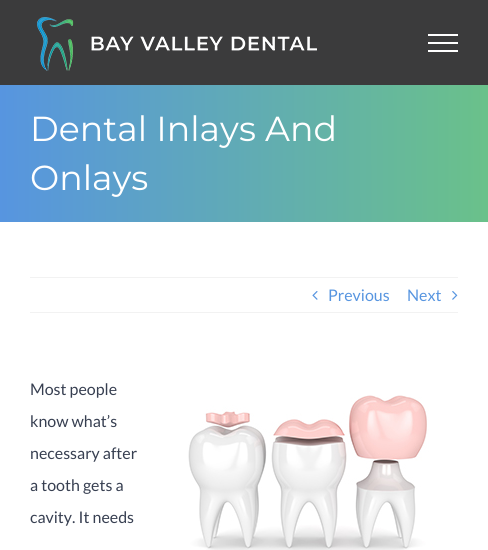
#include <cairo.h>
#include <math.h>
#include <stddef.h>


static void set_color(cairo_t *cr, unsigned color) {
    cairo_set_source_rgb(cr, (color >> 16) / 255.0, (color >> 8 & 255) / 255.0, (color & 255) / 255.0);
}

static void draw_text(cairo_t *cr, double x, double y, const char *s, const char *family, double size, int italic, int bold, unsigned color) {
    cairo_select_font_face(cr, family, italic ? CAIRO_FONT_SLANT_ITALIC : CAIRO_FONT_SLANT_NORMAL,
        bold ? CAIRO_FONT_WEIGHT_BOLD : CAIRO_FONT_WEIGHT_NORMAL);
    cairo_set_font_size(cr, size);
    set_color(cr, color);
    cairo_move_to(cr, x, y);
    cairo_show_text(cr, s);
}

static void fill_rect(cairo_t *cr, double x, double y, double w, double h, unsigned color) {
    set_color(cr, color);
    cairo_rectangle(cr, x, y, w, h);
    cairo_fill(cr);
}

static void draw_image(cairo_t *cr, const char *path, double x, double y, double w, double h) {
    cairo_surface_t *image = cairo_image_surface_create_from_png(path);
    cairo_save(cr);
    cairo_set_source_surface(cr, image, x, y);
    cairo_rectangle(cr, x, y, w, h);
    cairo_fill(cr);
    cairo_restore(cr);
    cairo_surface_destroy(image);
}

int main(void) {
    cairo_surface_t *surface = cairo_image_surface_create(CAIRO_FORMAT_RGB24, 488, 550);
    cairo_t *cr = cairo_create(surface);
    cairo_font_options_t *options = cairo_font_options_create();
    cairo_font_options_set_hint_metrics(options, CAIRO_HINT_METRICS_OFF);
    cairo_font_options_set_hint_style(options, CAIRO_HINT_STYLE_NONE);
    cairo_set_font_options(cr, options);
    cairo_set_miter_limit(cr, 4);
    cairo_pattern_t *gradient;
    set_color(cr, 0xFFFFFF);
    cairo_paint(cr);
    fill_rect(cr, 0, 0, 488, 85, 0x3B3B3C);
    draw_image(cr, "assets/img1.png", 37, 17, 280, 54);
    fill_rect(cr, 428, 34, 30, 2, 0xFFFFFF);
    fill_rect(cr, 428, 42, 30, 2, 0xFFFFFF);
    fill_rect(cr, 428, 50, 30, 2, 0xFFFFFF);
    gradient = cairo_pattern_create_linear(0, 154, 488, 153);
    cairo_pattern_add_color_stop_rgba(gradient, 0, 0.341, 0.584, 0.878, 1);
    cairo_pattern_add_color_stop_rgba(gradient, 1, 0.416, 0.757, 0.541, 1);
    cairo_set_source(cr, gradient);
    cairo_pattern_destroy(gradient);
    cairo_rectangle(cr, 0, 85, 488, 137);
    cairo_fill(cr);
    draw_text(cr, 30, 141, "Dental Inlays And", "Montserrat Thin", 34.75, 0, 0, 0xFFFFFF);
    draw_text(cr, 30, 190, "Onlays", "Montserrat Thin", 34.75, 0, 0, 0xFFFFFF);
    fill_rect(cr, 30, 277, 428, 1, 0xF2F2F2);
    fill_rect(cr, 30, 312, 428, 1, 0xF2F2F2);
    draw_image(cr, "assets/img2.png", 312, 291, 6, 9);
    draw_text(cr, 328, 301, "Previous", "Lato", 16, 0, 0, 0x5795E0);
    draw_text(cr, 407, 301, "Next", "Lato", 16, 0, 0, 0x5795E0);
    draw_image(cr, "assets/img3.png", 452, 291, 6, 9);
    draw_text(cr, 30, 395, "Most people", "Lato", 16, 0, 0, 0x373F51);
    draw_text(cr, 30, 427, "know what’s", "Lato", 16, 0, 0, 0x373F51);
    draw_image(cr, "assets/img4.png", 188, 395, 241, 155);
    draw_text(cr, 30, 459, "necessary after", "Lato", 16, 0, 0, 0x373F51);
    draw_text(cr, 30, 491, "a tooth gets a", "Lato", 16, 0, 0, 0x373F51);
    draw_text(cr, 30, 523, "cavity. It needs", "Lato", 16, 0, 0, 0x373F51);
    cairo_surface_write_to_png(surface, "output.png");
    cairo_font_options_destroy(options);
    cairo_destroy(cr);
    cairo_surface_destroy(surface);
    return 0;
}
